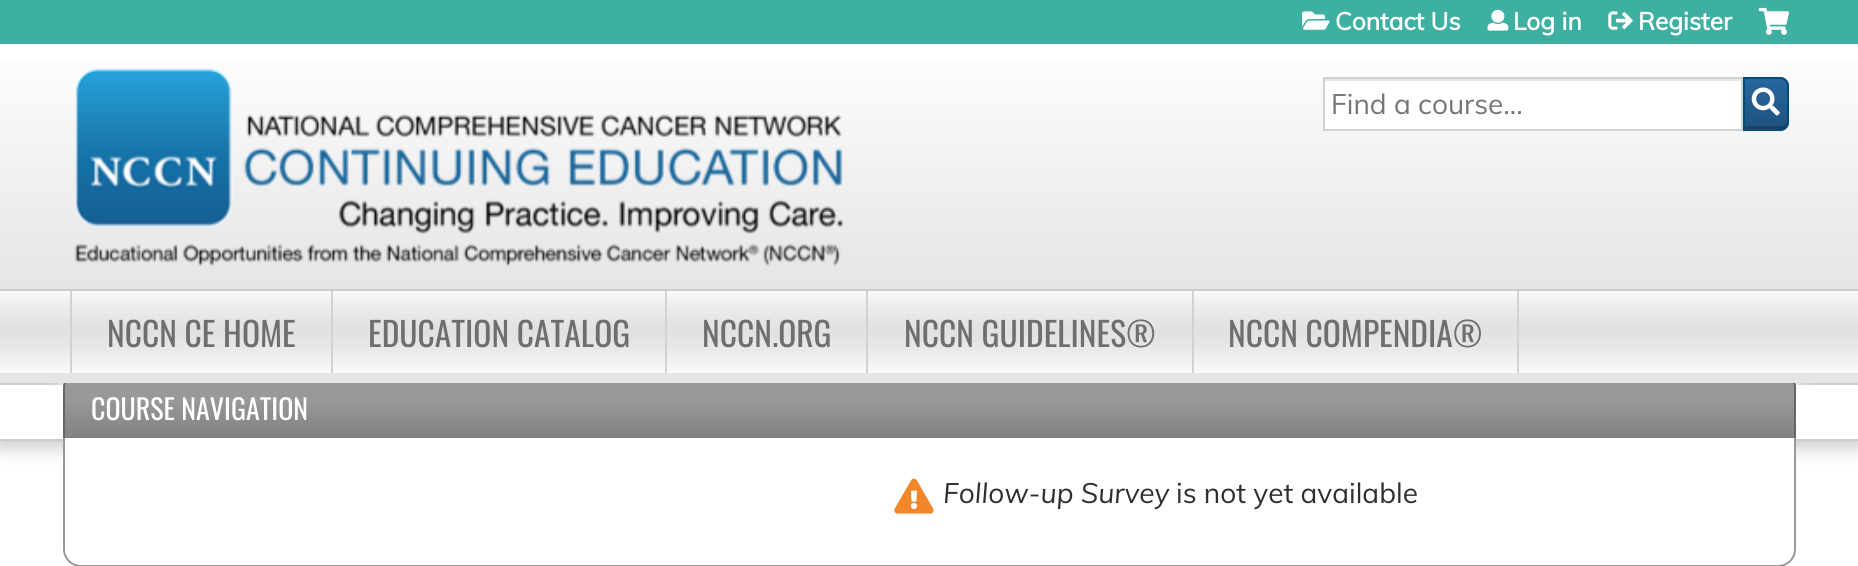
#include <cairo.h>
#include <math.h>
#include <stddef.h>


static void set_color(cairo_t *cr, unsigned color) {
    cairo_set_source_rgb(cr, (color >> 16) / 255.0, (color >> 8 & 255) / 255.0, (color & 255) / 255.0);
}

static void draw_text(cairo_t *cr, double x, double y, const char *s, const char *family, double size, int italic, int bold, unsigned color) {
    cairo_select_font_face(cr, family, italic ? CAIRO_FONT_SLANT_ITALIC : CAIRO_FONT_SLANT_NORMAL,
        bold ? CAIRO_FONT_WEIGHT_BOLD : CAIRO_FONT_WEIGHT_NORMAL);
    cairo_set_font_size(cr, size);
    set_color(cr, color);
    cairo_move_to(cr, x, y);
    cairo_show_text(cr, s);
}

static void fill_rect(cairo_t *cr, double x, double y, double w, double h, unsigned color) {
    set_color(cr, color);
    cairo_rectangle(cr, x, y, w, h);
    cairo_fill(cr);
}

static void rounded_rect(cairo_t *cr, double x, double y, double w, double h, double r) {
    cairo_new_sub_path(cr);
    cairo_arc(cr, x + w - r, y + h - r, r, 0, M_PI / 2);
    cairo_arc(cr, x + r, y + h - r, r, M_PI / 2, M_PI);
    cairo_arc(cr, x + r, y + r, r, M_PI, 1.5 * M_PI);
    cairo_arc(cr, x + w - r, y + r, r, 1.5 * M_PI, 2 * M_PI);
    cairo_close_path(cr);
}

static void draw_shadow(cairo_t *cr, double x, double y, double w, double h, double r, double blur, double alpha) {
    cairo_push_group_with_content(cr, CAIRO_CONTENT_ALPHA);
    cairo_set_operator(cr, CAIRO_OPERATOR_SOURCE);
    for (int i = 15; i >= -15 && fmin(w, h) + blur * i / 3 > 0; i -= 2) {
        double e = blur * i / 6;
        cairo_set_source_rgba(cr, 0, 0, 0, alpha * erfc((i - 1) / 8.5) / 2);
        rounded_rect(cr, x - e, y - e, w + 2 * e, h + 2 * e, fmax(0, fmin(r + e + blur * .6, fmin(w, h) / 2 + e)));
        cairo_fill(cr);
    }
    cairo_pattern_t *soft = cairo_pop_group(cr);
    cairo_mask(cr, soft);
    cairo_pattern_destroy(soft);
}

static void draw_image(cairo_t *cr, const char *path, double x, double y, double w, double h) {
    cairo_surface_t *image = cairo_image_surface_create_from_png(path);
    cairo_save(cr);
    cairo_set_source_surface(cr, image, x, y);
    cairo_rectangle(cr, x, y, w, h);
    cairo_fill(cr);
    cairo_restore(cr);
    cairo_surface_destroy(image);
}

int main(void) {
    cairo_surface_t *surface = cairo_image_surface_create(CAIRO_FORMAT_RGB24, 1858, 566);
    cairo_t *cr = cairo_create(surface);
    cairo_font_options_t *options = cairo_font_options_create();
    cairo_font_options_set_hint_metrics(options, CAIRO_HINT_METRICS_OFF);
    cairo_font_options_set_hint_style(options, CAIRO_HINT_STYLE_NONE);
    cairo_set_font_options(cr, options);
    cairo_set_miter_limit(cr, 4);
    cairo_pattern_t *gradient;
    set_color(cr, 0xFFFFFF);
    cairo_paint(cr);
    gradient = cairo_pattern_create_linear(929, 289, 929, 44);
    cairo_pattern_add_color_stop_rgba(gradient, 0, 0.898, 0.898, 0.898, 1);
    cairo_pattern_add_color_stop_rgba(gradient, 1, 0.996, 0.996, 0.996, 1);
    cairo_set_source(cr, gradient);
    cairo_pattern_destroy(gradient);
    cairo_rectangle(cr, 0, 59, 1858, 230);
    cairo_fill(cr);
    fill_rect(cr, 0, 0, 1858, 44, 0x3EB0A2);
    draw_image(cr, "assets/img1.png", 74, 68, 770, 199);
    draw_image(cr, "assets/img2.png", 1302, 11, 28, 19);
    draw_text(cr, 1335, 30, "Contact Us", "Muli", 24.5, 0, 1, 0xFFFFFF);
    draw_image(cr, "assets/img3.png", 1487, 9, 22, 22);
    draw_text(cr, 1513, 30, "Log in", "Muli", 24.5, 0, 1, 0xFFFFFF);
    draw_image(cr, "assets/img4.png", 1608, 11, 25, 19);
    draw_text(cr, 1638, 30, "Register", "Muli", 24.5, 0, 1, 0xFFFFFF);
    draw_image(cr, "assets/img5.png", 1758, 7, 31, 28);
    set_color(cr, 0x26679E);
    cairo_new_path(cr);
    cairo_move_to(cr, 1743, 77);
    cairo_line_to(cr, 1780, 77);
    cairo_curve_to(cr, 1785, 77, 1789, 81, 1789, 86);
    cairo_line_to(cr, 1789, 122);
    cairo_curve_to(cr, 1789, 127, 1785, 131, 1780, 131);
    cairo_line_to(cr, 1743, 131);
    cairo_close_path(cr);
    cairo_fill(cr);
    cairo_save(cr);
    cairo_new_path(cr);
    cairo_move_to(cr, 1743, 77);
    cairo_line_to(cr, 1780, 77);
    cairo_curve_to(cr, 1785, 77, 1789, 81, 1789, 86);
    cairo_line_to(cr, 1789, 122);
    cairo_curve_to(cr, 1789, 127, 1785, 131, 1780, 131);
    cairo_line_to(cr, 1743, 131);
    cairo_close_path(cr);
    cairo_clip(cr);
    gradient = cairo_pattern_create_linear(1766, 130, 1766, 79);
    cairo_pattern_add_color_stop_rgba(gradient, 0, 0, 0, 0, 0.2);
    cairo_pattern_add_color_stop_rgba(gradient, 1, 0, 0, 0, 0);
    cairo_set_source(cr, gradient);
    cairo_pattern_destroy(gradient);
    cairo_rectangle(cr, 1745, 84, 44, 46);
    cairo_fill(cr);
    cairo_restore(cr);
    cairo_set_source_rgba(cr, 0, 0, 0, 0.2);
    cairo_new_path(cr);
    cairo_move_to(cr, 1745, 126);
    cairo_line_to(cr, 1745, 130);
    cairo_line_to(cr, 1768, 130);
    cairo_curve_to(cr, 1776, 130, 1787, 133, 1787, 122);
    cairo_curve_to(cr, 1786, 124, 1783, 126, 1780, 126);
    cairo_close_path(cr);
    cairo_fill(cr);
    cairo_new_path(cr);
    cairo_move_to(cr, 1744, 78);
    cairo_line_to(cr, 1780, 78);
    cairo_curve_to(cr, 1784.5, 78, 1788, 81.5, 1788, 86);
    cairo_line_to(cr, 1788, 122);
    cairo_curve_to(cr, 1788, 126.5, 1784.5, 130, 1780, 130);
    cairo_line_to(cr, 1744, 130);
    cairo_close_path(cr);
    set_color(cr, 0x004D78);
    cairo_stroke(cr);
    fill_rect(cr, 1325, 81, 416, 48, 0xFFFFFF);
    fill_rect(cr, 1325, 79, 416, 2, 0xE6E6E6);
    cairo_rectangle(cr, 1324, 78, 418, 52);
    set_color(cr, 0xD1D1D1);
    cairo_stroke(cr);
    draw_text(cr, 1331, 114, "Find a course...", "Muli", 28, 0, 0, 0x757575);
    draw_image(cr, "assets/img6.png", 1751, 87, 29, 29);
    set_color(cr, 0x000000);
    draw_shadow(cr, -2, 387, 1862, 61, 0, 9, 0.2);
    fill_rect(cr, 0, 385, 1858, 54, 0xFFFFFF);
    fill_rect(cr, 0, 383, 1858, 2, 0xCCCCCC);
    fill_rect(cr, 0, 439, 1858, 2, 0xCCCCCC);
    set_color(cr, 0xFFFFFF);
    cairo_new_path(cr);
    cairo_move_to(cr, 64, 437);
    cairo_line_to(cr, 1795, 437);
    cairo_line_to(cr, 1795, 549);
    cairo_curve_to(cr, 1795, 558.5, 1787.5, 566, 1778, 566);
    cairo_line_to(cr, 81, 566);
    cairo_curve_to(cr, 71.5, 566, 64, 558.5, 64, 549);
    cairo_close_path(cr);
    cairo_fill_preserve(cr);
    set_color(cr, 0x999999);
    cairo_stroke(cr);
    set_color(cr, 0xFFFFFF);
    draw_shadow(cr, 63, 357, 1733, 60, 9, 9, 1);
    gradient = cairo_pattern_create_linear(929, 290, 929, 373);
    cairo_pattern_add_color_stop_rgba(gradient, 0, 0.98, 0.98, 0.98, 1);
    cairo_pattern_add_color_stop_rgba(gradient, 0.33, 0.902, 0.902, 0.902, 1);
    cairo_pattern_add_color_stop_rgba(gradient, 0.5, 0.882, 0.882, 0.882, 1);
    cairo_pattern_add_color_stop_rgba(gradient, 0.66, 0.902, 0.902, 0.902, 1);
    cairo_pattern_add_color_stop_rgba(gradient, 1, 0.98, 0.98, 0.98, 1);
    cairo_set_source(cr, gradient);
    cairo_pattern_destroy(gradient);
    cairo_rectangle(cr, 0, 291, 1858, 82);
    cairo_fill(cr);
    fill_rect(cr, 0, 289, 1858, 2, 0xCCCCCC);
    set_color(cr, 0x999999);
    cairo_new_path(cr);
    cairo_move_to(cr, 72, 378);
    cairo_line_to(cr, 1787, 378);
    cairo_curve_to(cr, 1792, 378, 1796, 382, 1796, 387);
    cairo_line_to(cr, 1796, 438);
    cairo_line_to(cr, 63, 438);
    cairo_line_to(cr, 63, 387);
    cairo_curve_to(cr, 63, 382, 67, 378, 72, 378);
    cairo_close_path(cr);
    cairo_fill(cr);
    gradient = cairo_pattern_create_linear(929, 438, 929, 380);
    cairo_pattern_add_color_stop_rgba(gradient, 0, 0, 0, 0, 0.15);
    cairo_pattern_add_color_stop_rgba(gradient, 0.7, 0, 0, 0, 0);
    cairo_set_source(cr, gradient);
    cairo_pattern_destroy(gradient);
    cairo_rectangle(cr, 65, 403, 1729, 35);
    cairo_fill(cr);
    set_color(cr, 0x666666);
    cairo_set_fill_rule(cr, CAIRO_FILL_RULE_EVEN_ODD);
    cairo_new_path(cr);
    cairo_move_to(cr, 72, 378);
    cairo_line_to(cr, 1787, 378);
    cairo_curve_to(cr, 1792, 378, 1796, 382, 1796, 387);
    cairo_line_to(cr, 1796, 438);
    cairo_line_to(cr, 63, 438);
    cairo_line_to(cr, 63, 387);
    cairo_curve_to(cr, 63, 382, 67, 378, 72, 378);
    cairo_close_path(cr);
    cairo_move_to(cr, 72, 380);
    cairo_line_to(cr, 1787, 380);
    cairo_curve_to(cr, 1791, 380, 1794, 383, 1794, 387);
    cairo_line_to(cr, 1794, 438);
    cairo_line_to(cr, 65, 438);
    cairo_line_to(cr, 65, 387);
    cairo_curve_to(cr, 65, 383, 68, 380, 72, 380);
    cairo_close_path(cr);
    cairo_fill(cr);
    fill_rect(cr, 0, 373, 1858, 10, 0xE5E5E5);
    fill_rect(cr, 331, 291, 2, 82, 0xD2D2D2);
    fill_rect(cr, 70, 291, 2, 82, 0xD2D2D2);
    draw_text(cr, 107, 347, "NCCN CE HOME", "Oswald", 33.5, 0, 0, 0x6E6E6E);
    fill_rect(cr, 665, 291, 2, 82, 0xD2D2D2);
    draw_text(cr, 368, 347, "EDUCATION CATALOG", "Oswald", 33.5, 0, 0, 0x6E6E6E);
    fill_rect(cr, 866, 291, 2, 82, 0xD2D2D2);
    draw_text(cr, 702, 347, "NCCN.ORG", "Oswald", 33.5, 0, 0, 0x6E6E6E);
    fill_rect(cr, 1192, 291, 2, 82, 0xD2D2D2);
    draw_text(cr, 904, 347, "NCCN GUIDELINES®", "Oswald", 33.5, 0, 0, 0x6E6E6E);
    fill_rect(cr, 1517, 291, 2, 82, 0xD2D2D2);
    draw_text(cr, 1228, 347, "NCCN COMPENDIA®", "Oswald", 33.5, 0, 0, 0x6E6E6E);
    draw_text(cr, 91, 420, "COURSE NAVIGATION", "Oswald", 28, 0, 0, 0xFFFFFF);
    draw_image(cr, "assets/img7.png", 894, 478, 40, 36);
    draw_text(cr, 943, 503, "Follow-up Survey", "Muli", 28, 1, 0, 0x2F2F2F);
    draw_text(cr, 1176, 503, "is not yet available", "Muli", 28, 0, 0, 0x2F2F2F);
    cairo_surface_write_to_png(surface, "output.png");
    cairo_font_options_destroy(options);
    cairo_destroy(cr);
    cairo_surface_destroy(surface);
    return 0;
}
